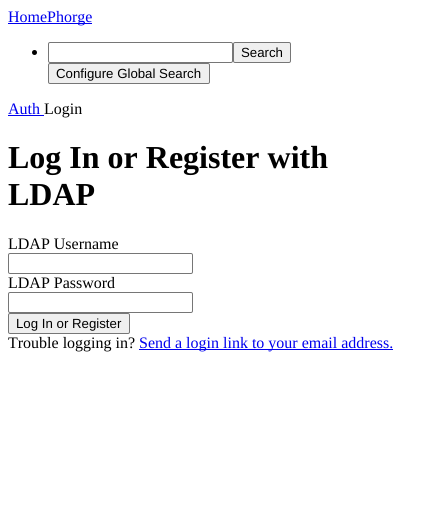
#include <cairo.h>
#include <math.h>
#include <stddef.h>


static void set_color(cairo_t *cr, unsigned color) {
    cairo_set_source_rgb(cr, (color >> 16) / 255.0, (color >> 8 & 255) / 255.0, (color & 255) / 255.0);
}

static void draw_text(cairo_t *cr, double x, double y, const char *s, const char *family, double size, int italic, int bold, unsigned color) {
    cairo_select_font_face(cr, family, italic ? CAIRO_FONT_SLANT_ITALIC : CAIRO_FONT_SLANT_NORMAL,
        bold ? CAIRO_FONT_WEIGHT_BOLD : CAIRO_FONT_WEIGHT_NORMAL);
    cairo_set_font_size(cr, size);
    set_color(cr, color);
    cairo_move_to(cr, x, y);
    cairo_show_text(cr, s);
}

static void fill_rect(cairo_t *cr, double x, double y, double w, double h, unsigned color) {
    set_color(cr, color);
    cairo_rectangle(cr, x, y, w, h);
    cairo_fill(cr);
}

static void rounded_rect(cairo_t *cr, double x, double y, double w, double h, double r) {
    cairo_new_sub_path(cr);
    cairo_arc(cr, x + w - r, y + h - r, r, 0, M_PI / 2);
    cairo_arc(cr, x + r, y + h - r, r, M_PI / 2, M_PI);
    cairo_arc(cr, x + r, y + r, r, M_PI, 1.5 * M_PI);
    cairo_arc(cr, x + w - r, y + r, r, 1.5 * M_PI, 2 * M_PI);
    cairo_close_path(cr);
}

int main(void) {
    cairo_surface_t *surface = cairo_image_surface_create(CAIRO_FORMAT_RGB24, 426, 526);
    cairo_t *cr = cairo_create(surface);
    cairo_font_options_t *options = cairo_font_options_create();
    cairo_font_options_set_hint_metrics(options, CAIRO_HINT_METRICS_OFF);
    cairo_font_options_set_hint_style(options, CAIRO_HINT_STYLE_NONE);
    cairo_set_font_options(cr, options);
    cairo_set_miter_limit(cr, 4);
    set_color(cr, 0xFFFFFF);
    cairo_paint(cr);
    fill_rect(cr, 8, 23, 84, 1, 0x0000EE);
    draw_text(cr, 8, 22, "HomePhorge", "Liberation Serif", 16, 0, 0, 0x0000EE);
    set_color(cr, 0x000000);
    cairo_new_path(cr);
    cairo_arc(cr, 34.5, 52.5, 2.5, 0, 2 * M_PI);
    cairo_fill(cr);
    rounded_rect(cr, 48.5, 42.5, 184, 20, 1.5);
    set_color(cr, 0x767676);
    cairo_set_line_width(cr, 1);
    cairo_stroke(cr);
    set_color(cr, 0xEFEFEF);
    rounded_rect(cr, 233.5, 42.5, 57, 20, 1.5);
    cairo_fill_preserve(cr);
    set_color(cr, 0x767676);
    cairo_stroke(cr);
    draw_text(cr, 241, 57, "Search", "Liberation Sans", 13.25, 0, 0, 0x000000);
    set_color(cr, 0xEFEFEF);
    rounded_rect(cr, 48.5, 63.5, 161, 20, 1.5);
    cairo_fill_preserve(cr);
    set_color(cr, 0x767676);
    cairo_stroke(cr);
    draw_text(cr, 56, 78, "Configure Global Search", "Liberation Sans", 13.25, 0, 0, 0x000000);
    draw_text(cr, 8, 114, "Auth", "Liberation Serif", 16, 0, 0, 0x0000EE);
    fill_rect(cr, 8, 115, 36, 1, 0x0000EE);
    draw_text(cr, 44, 114, "Login", "Liberation Serif", 16, 0, 0, 0x000000);
    draw_text(cr, 8, 168, "Log In or Register with", "Liberation Serif", 32, 0, 1, 0x000000);
    draw_text(cr, 8, 205, "LDAP", "Liberation Serif", 32, 0, 1, 0x000000);
    draw_text(cr, 8, 249, "LDAP Username", "Liberation Serif", 16, 0, 0, 0x000000);
    rounded_rect(cr, 8.5, 253.5, 184, 20, 1.5);
    set_color(cr, 0x767676);
    cairo_stroke(cr);
    draw_text(cr, 8, 288, "LDAP Password", "Liberation Serif", 16, 0, 0, 0x000000);
    rounded_rect(cr, 8.5, 292.5, 184, 20, 1.5);
    set_color(cr, 0x767676);
    cairo_stroke(cr);
    set_color(cr, 0xEFEFEF);
    rounded_rect(cr, 8.5, 313.5, 121, 20, 1.5);
    cairo_fill_preserve(cr);
    set_color(cr, 0x767676);
    cairo_stroke(cr);
    draw_text(cr, 16, 328, "Log In or Register", "Liberation Sans", 13.25, 0, 0, 0x000000);
    draw_text(cr, 8, 348, "Trouble logging in?", "Liberation Serif", 16, 0, 0, 0x000000);
    fill_rect(cr, 139, 349, 254, 1, 0x0000EE);
    draw_text(cr, 139, 348, "Send a login link to your email address.", "Liberation Serif", 16, 0, 0, 0x0000EE);
    cairo_surface_write_to_png(surface, "output.png");
    cairo_font_options_destroy(options);
    cairo_destroy(cr);
    cairo_surface_destroy(surface);
    return 0;
}
